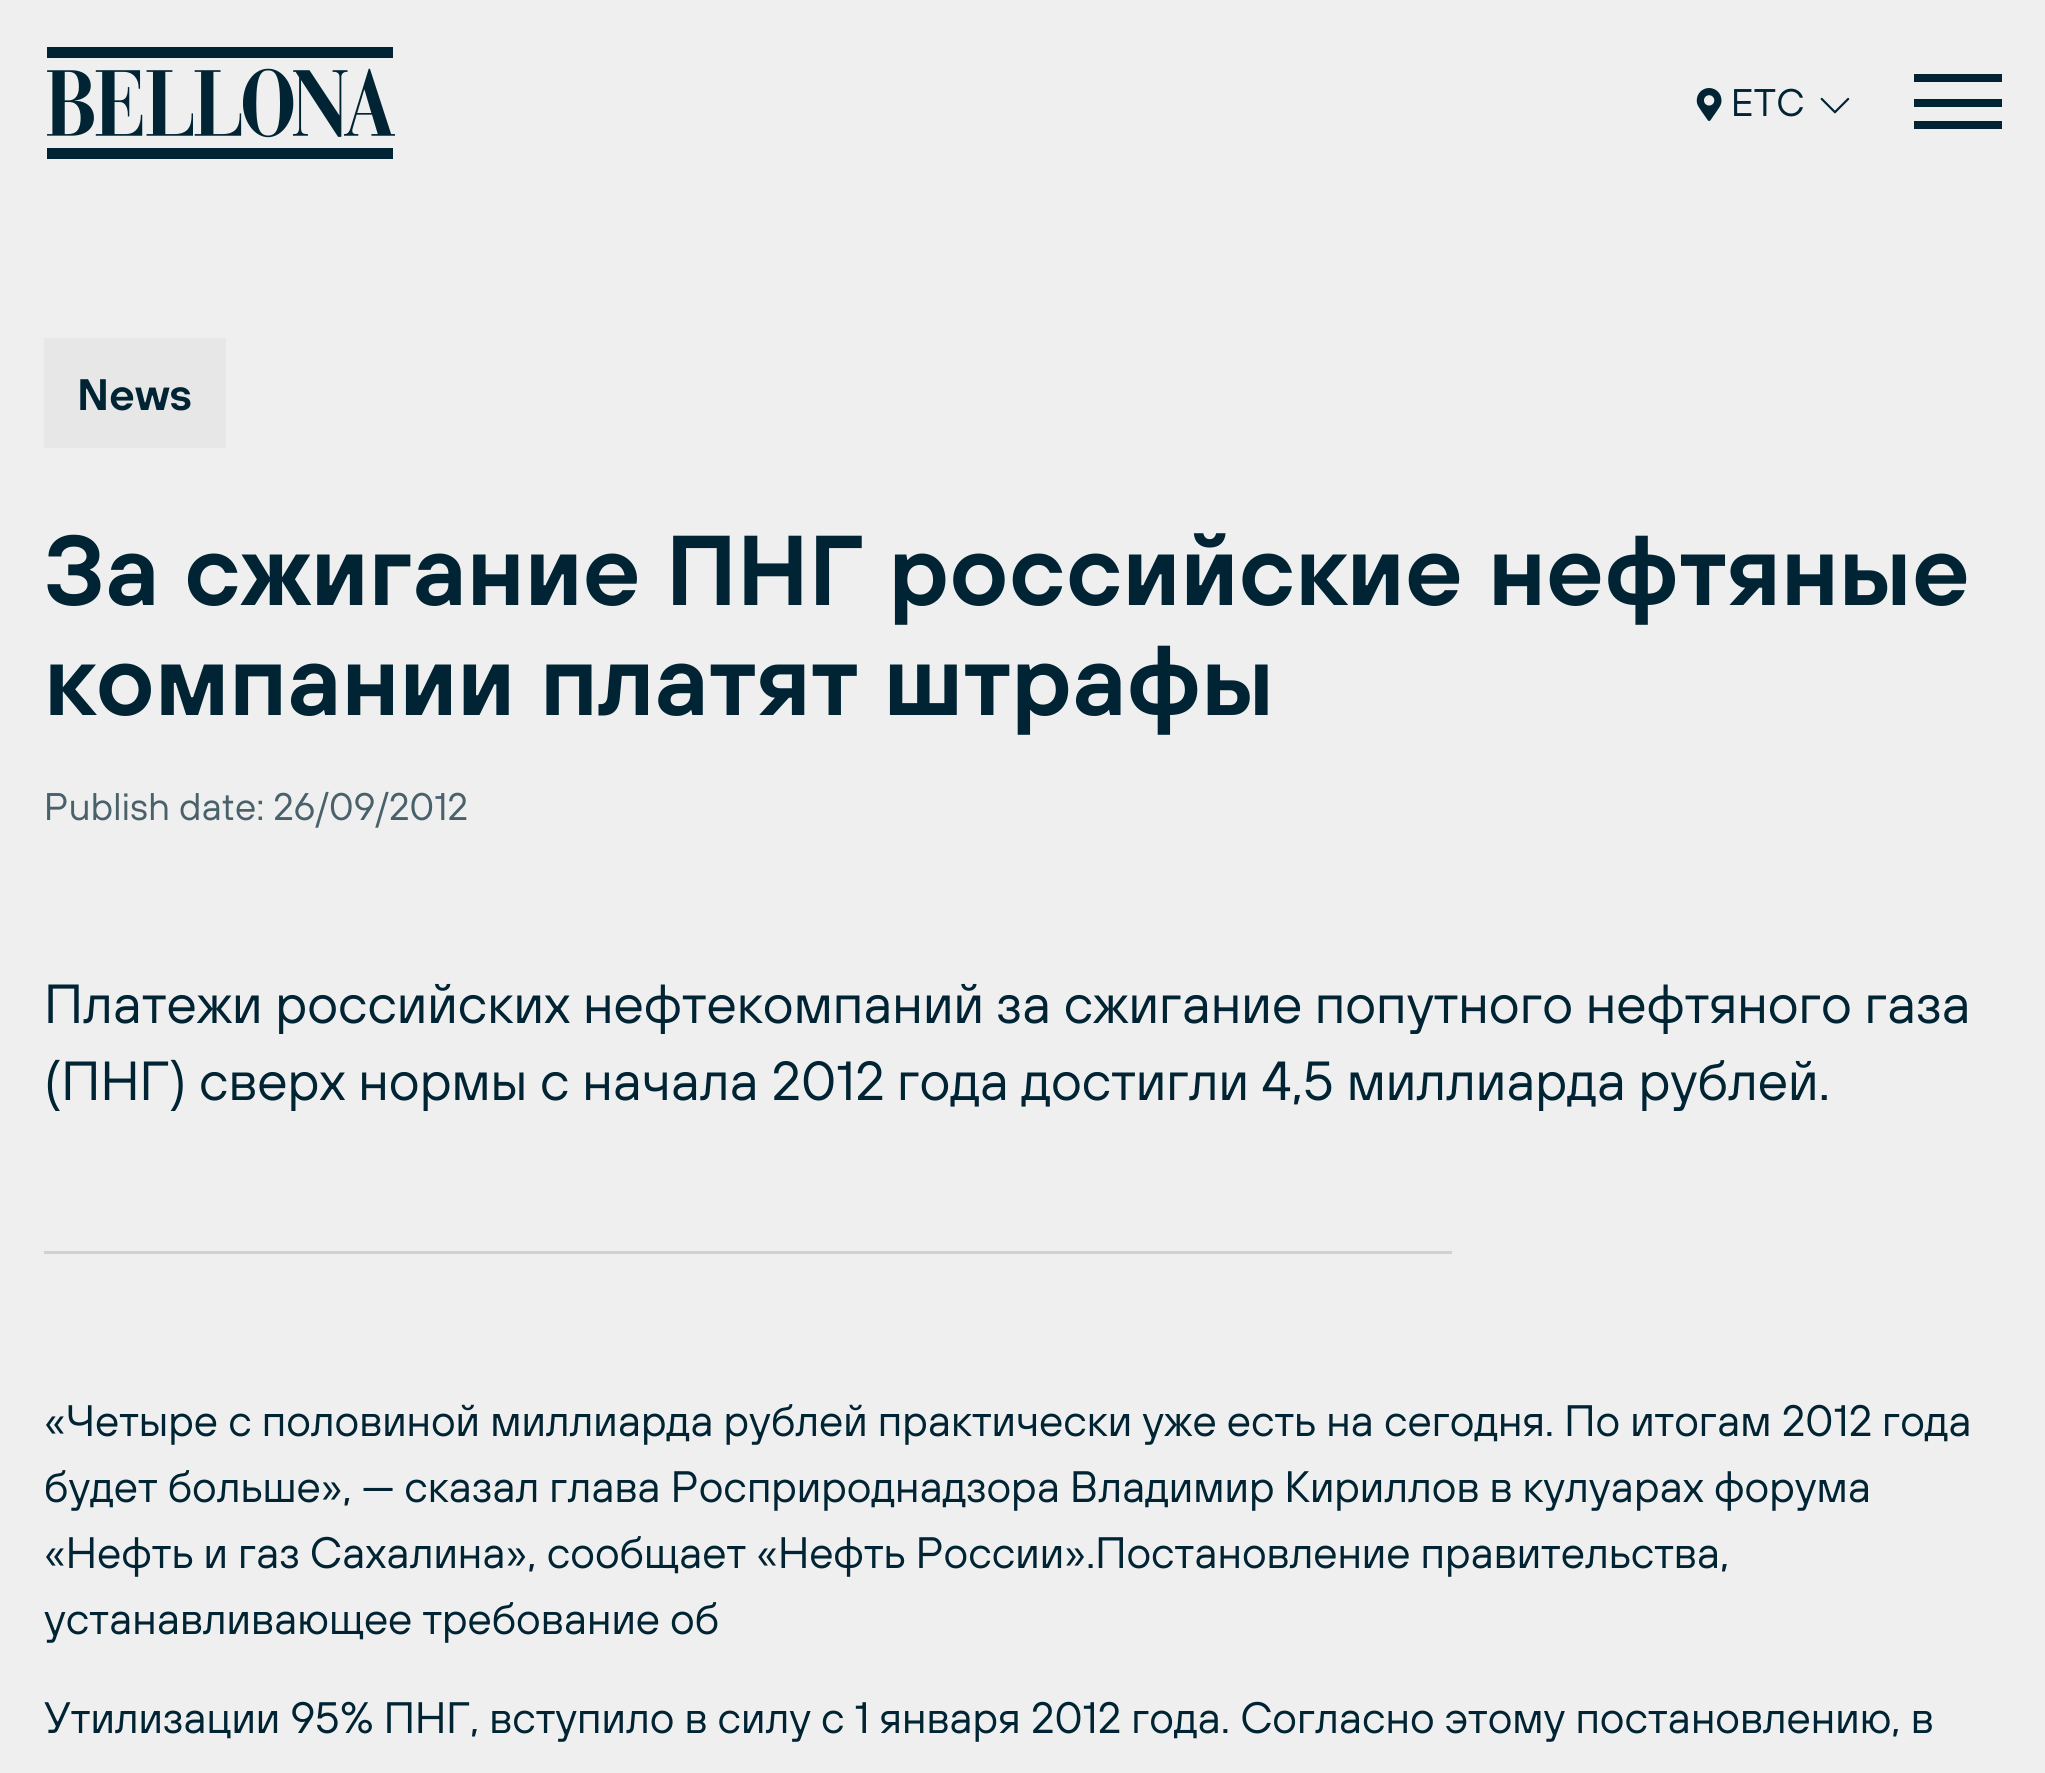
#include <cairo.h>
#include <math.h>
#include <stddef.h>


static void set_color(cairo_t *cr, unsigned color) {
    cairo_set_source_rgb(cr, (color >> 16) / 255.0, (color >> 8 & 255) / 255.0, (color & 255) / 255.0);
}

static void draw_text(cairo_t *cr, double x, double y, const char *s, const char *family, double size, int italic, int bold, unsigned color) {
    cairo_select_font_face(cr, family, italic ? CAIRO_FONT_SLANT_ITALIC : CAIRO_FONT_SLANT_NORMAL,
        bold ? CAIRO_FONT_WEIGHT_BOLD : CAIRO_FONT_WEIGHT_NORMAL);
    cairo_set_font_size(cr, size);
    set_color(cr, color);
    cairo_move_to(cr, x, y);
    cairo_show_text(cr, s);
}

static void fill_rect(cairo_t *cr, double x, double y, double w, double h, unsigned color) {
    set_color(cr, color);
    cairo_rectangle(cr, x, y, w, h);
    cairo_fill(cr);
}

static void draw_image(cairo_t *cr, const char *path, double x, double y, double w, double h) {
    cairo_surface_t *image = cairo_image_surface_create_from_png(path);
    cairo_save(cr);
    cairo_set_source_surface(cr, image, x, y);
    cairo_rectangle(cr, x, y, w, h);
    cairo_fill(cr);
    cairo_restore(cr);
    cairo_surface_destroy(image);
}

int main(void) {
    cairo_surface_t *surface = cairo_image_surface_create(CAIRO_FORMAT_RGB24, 2045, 1773);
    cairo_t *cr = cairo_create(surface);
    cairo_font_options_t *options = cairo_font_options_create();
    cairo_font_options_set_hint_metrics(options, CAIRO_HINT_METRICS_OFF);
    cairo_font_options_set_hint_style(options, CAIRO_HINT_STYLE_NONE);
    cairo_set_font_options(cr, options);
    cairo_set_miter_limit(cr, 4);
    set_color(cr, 0xEFEFEF);
    cairo_paint(cr);
    draw_image(cr, "assets/img1.png", 47, 47, 348, 112);
    draw_image(cr, "assets/img2.png", 1696, 88, 26, 33);
    draw_text(cr, 1731, 116, "ETC", "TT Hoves", 38.5, 0, 0, 0x002433);
    draw_image(cr, "assets/img3.png", 1820, 97, 30, 17);
    fill_rect(cr, 1914, 74, 88, 8, 0x002433);
    fill_rect(cr, 1914, 99, 88, 8, 0x002433);
    fill_rect(cr, 1914, 121, 88, 8, 0x002433);
    fill_rect(cr, 44, 338, 182, 110, 0xE7E7E7);
    draw_text(cr, 77, 410, "News", "TT Hoves SemiBold", 44, 0, 0, 0x002433);
    draw_text(cr, 44, 605, "За сжигание ПНГ российские нефтяные", "TT Hoves SemiBold", 99, 0, 0, 0x002433);
    draw_text(cr, 44, 715, "компании платят штрафы", "TT Hoves SemiBold", 99, 0, 0, 0x002433);
    draw_text(cr, 44, 820, "Publish date: 26/09/2012", "TT Hoves", 38.5, 0, 0, 0x48616B);
    draw_text(cr, 44, 1023, "Платежи российских нефтекомпаний за сжигание попутного нефтяного газа", "TT Hoves", 55, 0, 0, 0x002433);
    draw_text(cr, 44, 1100, "(ПНГ) сверх нормы с начала 2012 года достигли 4,5 миллиарда рублей.", "TT Hoves", 55, 0, 0, 0x002433);
    fill_rect(cr, 44, 1251, 1408, 3, 0xCED2D4);
    draw_text(cr, 44, 1436, "«Четыре с половиной миллиарда рублей практически уже есть на сегодня. По итогам 2012 года", "TT Hoves", 44, 0, 0, 0x002433);
    draw_text(cr, 44, 1502, "будет больше», — сказал глава Росприроднадзора Владимир Кириллов в кулуарах форума", "TT Hoves", 44, 0, 0, 0x002433);
    draw_text(cr, 44, 1568, "«Нефть и газ Сахалина», сообщает «Нефть России».Постановление правительства,", "TT Hoves", 44, 0, 0, 0x002433);
    draw_text(cr, 44, 1634, "устанавливающее требование об", "TT Hoves", 44, 0, 0, 0x002433);
    draw_text(cr, 44, 1733, "Утилизации 95% ПНГ, вступило в силу с 1 января 2012 года. Согласно этому постановлению, в", "TT Hoves", 44, 0, 0, 0x002433);
    cairo_surface_write_to_png(surface, "output.png");
    cairo_font_options_destroy(options);
    cairo_destroy(cr);
    cairo_surface_destroy(surface);
    return 0;
}
